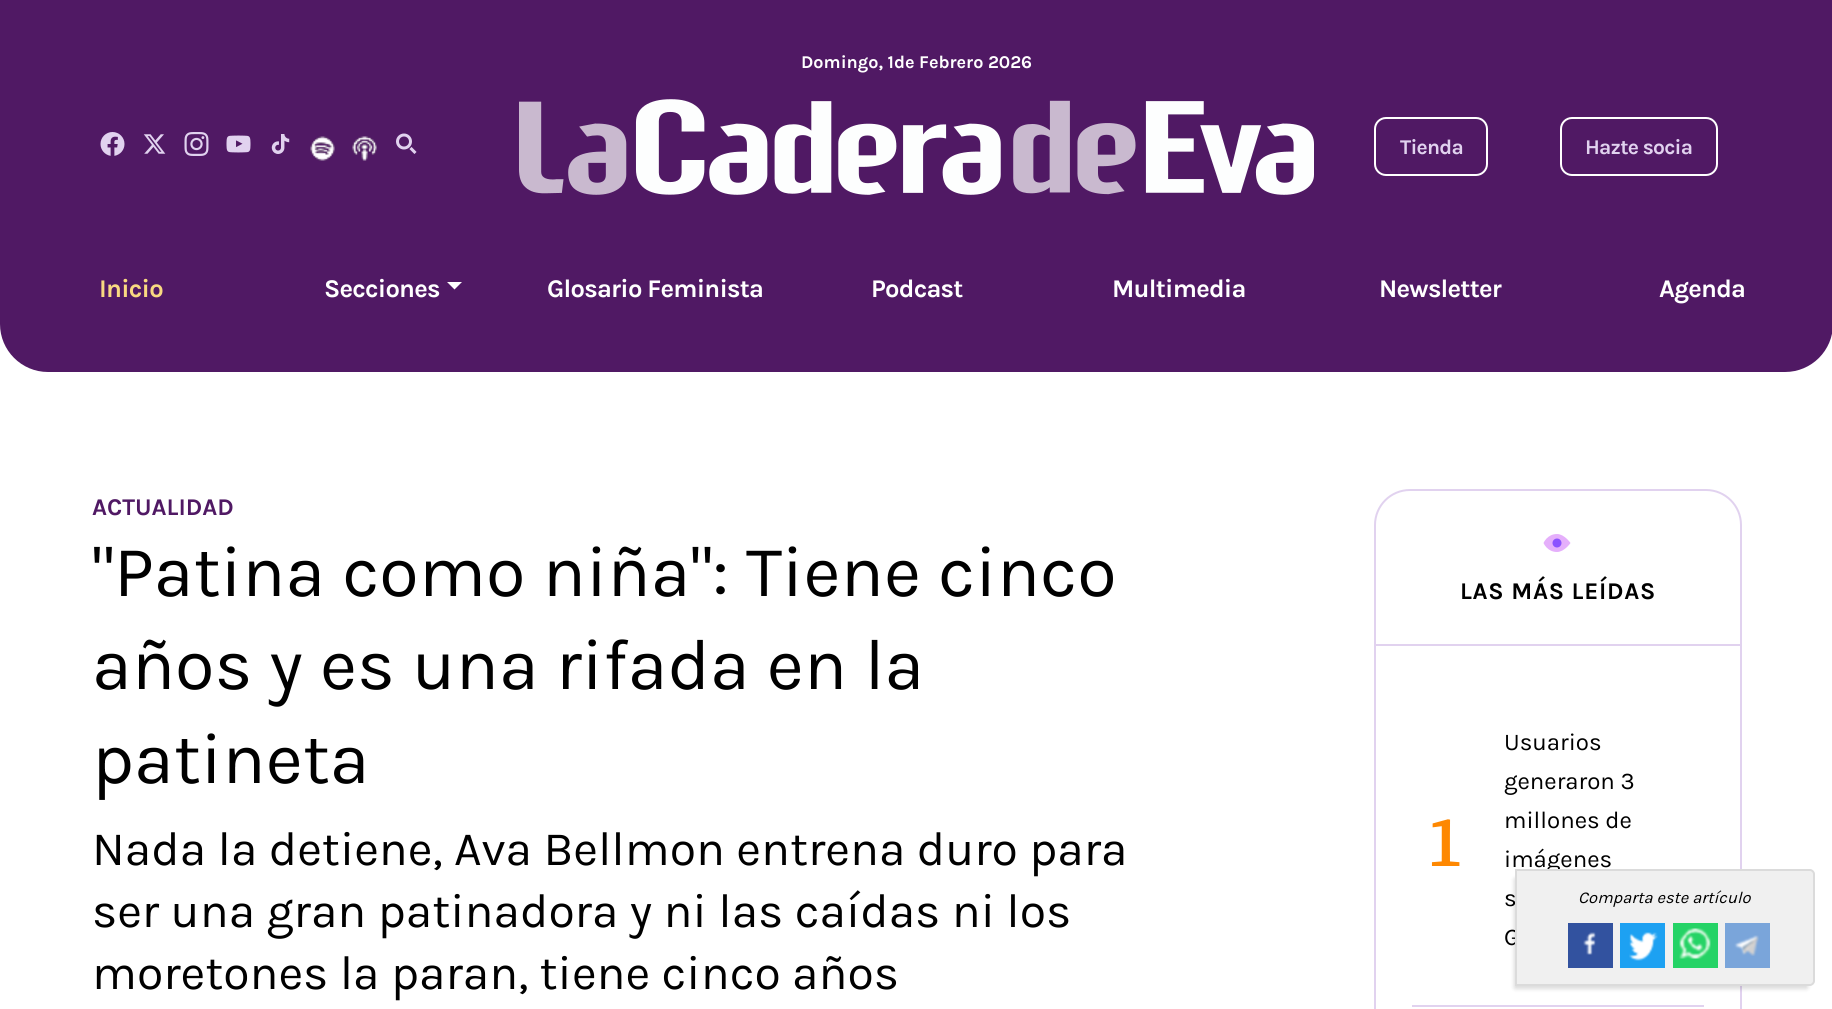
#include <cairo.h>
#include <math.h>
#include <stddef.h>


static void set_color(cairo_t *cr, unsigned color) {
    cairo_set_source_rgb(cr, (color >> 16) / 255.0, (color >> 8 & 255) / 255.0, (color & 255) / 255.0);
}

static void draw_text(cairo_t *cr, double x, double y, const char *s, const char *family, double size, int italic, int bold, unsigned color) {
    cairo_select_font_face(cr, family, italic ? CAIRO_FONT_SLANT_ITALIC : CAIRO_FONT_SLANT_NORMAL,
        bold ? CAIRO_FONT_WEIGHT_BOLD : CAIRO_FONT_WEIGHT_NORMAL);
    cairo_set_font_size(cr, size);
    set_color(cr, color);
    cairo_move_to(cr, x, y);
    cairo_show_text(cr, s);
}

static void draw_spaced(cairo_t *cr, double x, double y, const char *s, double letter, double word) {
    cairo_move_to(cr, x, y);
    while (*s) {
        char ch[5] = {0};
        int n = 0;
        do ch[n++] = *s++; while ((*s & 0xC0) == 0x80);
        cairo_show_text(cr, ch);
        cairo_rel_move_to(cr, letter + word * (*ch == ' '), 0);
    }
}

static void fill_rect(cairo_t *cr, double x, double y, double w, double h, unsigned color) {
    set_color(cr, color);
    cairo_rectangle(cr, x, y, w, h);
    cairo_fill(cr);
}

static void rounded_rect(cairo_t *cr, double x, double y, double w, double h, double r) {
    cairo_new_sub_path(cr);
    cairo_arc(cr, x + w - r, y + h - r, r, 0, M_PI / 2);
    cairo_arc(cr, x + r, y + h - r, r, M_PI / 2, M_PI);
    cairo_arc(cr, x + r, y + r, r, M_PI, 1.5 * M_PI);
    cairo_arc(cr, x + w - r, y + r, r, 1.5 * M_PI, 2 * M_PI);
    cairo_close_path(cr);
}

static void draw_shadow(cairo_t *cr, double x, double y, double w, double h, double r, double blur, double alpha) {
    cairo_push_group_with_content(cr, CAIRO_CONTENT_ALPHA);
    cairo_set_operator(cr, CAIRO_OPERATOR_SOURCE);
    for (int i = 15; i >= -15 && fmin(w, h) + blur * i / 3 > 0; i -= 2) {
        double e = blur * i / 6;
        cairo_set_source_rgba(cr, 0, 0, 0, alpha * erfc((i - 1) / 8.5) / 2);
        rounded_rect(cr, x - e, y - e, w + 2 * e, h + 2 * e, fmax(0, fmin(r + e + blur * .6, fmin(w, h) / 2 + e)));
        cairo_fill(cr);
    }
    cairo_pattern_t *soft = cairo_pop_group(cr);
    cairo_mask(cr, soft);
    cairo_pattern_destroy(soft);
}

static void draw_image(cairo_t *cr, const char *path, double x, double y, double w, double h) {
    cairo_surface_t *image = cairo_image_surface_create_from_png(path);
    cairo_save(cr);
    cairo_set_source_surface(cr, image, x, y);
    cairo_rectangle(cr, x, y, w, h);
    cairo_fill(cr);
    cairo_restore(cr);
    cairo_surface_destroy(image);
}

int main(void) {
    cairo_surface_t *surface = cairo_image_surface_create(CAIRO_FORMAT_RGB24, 1832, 1009);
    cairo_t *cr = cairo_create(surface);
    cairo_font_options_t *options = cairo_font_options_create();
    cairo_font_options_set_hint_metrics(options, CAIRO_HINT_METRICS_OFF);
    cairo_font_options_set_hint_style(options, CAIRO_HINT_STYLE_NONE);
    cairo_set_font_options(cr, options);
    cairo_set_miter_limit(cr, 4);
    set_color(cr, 0xFFFFFF);
    cairo_paint(cr);
    set_color(cr, 0x501964);
    cairo_new_path(cr);
    cairo_move_to(cr, 0, 0);
    cairo_line_to(cr, 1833, 0);
    cairo_line_to(cr, 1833, 324);
    cairo_curve_to(cr, 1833, 350.5, 1811.5, 372, 1785, 372);
    cairo_line_to(cr, 48, 372);
    cairo_curve_to(cr, 21.5, 372, 0, 350.5, 0, 324);
    cairo_close_path(cr);
    cairo_fill(cr);
    draw_text(cr, 801, 68, "Domingo, 1de Febrero 2026", "Karla", 18, 0, 1, 0xFFFFFF);
    draw_image(cr, "assets/img1.png", 100, 132, 25, 24);
    draw_image(cr, "assets/img2.png", 143, 134, 23, 20);
    draw_image(cr, "assets/img3.png", 184, 132, 25, 24);
    draw_image(cr, "assets/img4.png", 226, 135, 25, 18);
    draw_image(cr, "assets/img5.png", 271, 134, 19, 20);
    draw_image(cr, "assets/img6.png", 310, 136, 25, 25);
    draw_image(cr, "assets/img7.png", 352, 136, 25, 25);
    draw_image(cr, "assets/img8.png", 396, 133, 21, 21);
    draw_image(cr, "assets/img9.png", 519, 99, 795, 96);
    rounded_rect(cr, 1375, 118, 112, 57, 11);
    cairo_stroke(cr);
    cairo_set_font_size(cr, 21);
    set_color(cr, 0xE1D2EF);
    draw_spaced(cr, 1400, 154, "Tienda", -0.75, 0);
    rounded_rect(cr, 1561, 118, 156, 57, 11);
    set_color(cr, 0xFFFFFF);
    cairo_stroke(cr);
    set_color(cr, 0xE1D2EF);
    draw_spaced(cr, 1585, 154, "Hazte socia", -0.75, 0);
    cairo_set_font_size(cr, 25.5);
    set_color(cr, 0xF9D981);
    draw_spaced(cr, 99, 297, "Inicio", -0.75, 0);
    set_color(cr, 0xFFFFFF);
    draw_spaced(cr, 324, 297, "Secciones", -0.75, 0);
    cairo_new_path(cr);
    cairo_move_to(cr, 447, 282);
    cairo_line_to(cr, 462, 282);
    cairo_line_to(cr, 454.5, 289.5);
    cairo_close_path(cr);
    cairo_fill(cr);
    draw_spaced(cr, 547, 297, "Glosario Feminista", -0.75, 0);
    draw_spaced(cr, 871, 297, "Podcast", -0.75, 0);
    draw_spaced(cr, 1112, 297, "Multimedia", -0.75, 0);
    draw_spaced(cr, 1379, 297, "Newsletter", -0.75, 0);
    draw_spaced(cr, 1659, 297, "Agenda", -0.75, 0);
    draw_text(cr, 92, 515, "ACTUALIDAD", "Karla", 24, 0, 1, 0x501964);
    draw_text(cr, 92, 596, "\"Patina como niña\": Tiene cinco", "Karla", 72, 0, 0, 0x000000);
    draw_text(cr, 92, 689, "años y es una rifada en la", "Karla", 72, 0, 0, 0x000000);
    draw_text(cr, 92, 783, "patineta", "Karla", 72, 0, 0, 0x000000);
    draw_text(cr, 92, 865, "Nada la detiene, Ava Bellmon entrena duro para", "Karla", 48, 0, 0, 0x000000);
    draw_text(cr, 92, 927, "ser una gran patinadora y ni las caídas ni los", "Karla", 48, 0, 0, 0x000000);
    draw_text(cr, 92, 989, "moretones la paran, tiene cinco años", "Karla", 48, 0, 0, 0x000000);
    rounded_rect(cr, 1375, 490, 366, 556, 35);
    set_color(cr, 0xE1D2EF);
    cairo_stroke(cr);
    set_color(cr, 0x000000);
    draw_shadow(cr, 1514, 878, 294, 111, 1.5, 2, 0.14);
    draw_text(cr, 1504, 867, "imágenes", "Karla", 24, 0, 0, 0x000000);
    draw_text(cr, 1504, 906, "s", "Karla", 24, 0, 0, 0x000000);
    draw_text(cr, 1504, 945, "G", "Karla", 24, 0, 0, 0x000000);
    set_color(cr, 0xF0F0F0);
    cairo_new_path(cr);
    cairo_move_to(cr, 1516, 870);
    cairo_line_to(cr, 1810, 870);
    cairo_curve_to(cr, 1812, 870, 1814, 872, 1814, 874);
    cairo_line_to(cr, 1814, 981);
    cairo_curve_to(cr, 1814, 983, 1812, 985, 1810, 985);
    cairo_line_to(cr, 1516, 985);
    cairo_close_path(cr);
    cairo_fill_preserve(cr);
    set_color(cr, 0xDBDBDB);
    cairo_stroke(cr);
    draw_text(cr, 1578, 903, "Comparta este artículo", "Karla", 16.5, 1, 0, 0x000000);
    fill_rect(cr, 1568, 923, 45, 45, 0x32529F);
    draw_image(cr, "assets/img10.png", 1583, 932, 13, 23);
    fill_rect(cr, 1620, 923, 45, 45, 0x1DA1F2);
    draw_image(cr, "assets/img11.png", 1629, 932, 29, 29);
    fill_rect(cr, 1673, 923, 45, 45, 0x25D366);
    draw_image(cr, "assets/img12.png", 1679, 928, 32, 31);
    fill_rect(cr, 1725, 923, 45, 45, 0x7AA5DA);
    draw_image(cr, "assets/img13.png", 1734, 935, 25, 21);
    fill_rect(cr, 1376, 644, 364, 2, 0xE1D2EF);
    draw_image(cr, "assets/img14.png", 1543, 534, 28, 18);
    cairo_select_font_face(cr, "Karla", CAIRO_FONT_SLANT_NORMAL, CAIRO_FONT_WEIGHT_BOLD);
    cairo_set_font_size(cr, 24);
    set_color(cr, 0x000000);
    draw_spaced(cr, 1460, 599, "LAS MÁS LEÍDAS", 0.75, 0);
    fill_rect(cr, 1412, 1005, 292, 2, 0xE1D2EF);
    draw_text(cr, 1426, 866, "1", "Source Serif 4 Medium", 72, 0, 0, 0xFE8801);
    draw_text(cr, 1504, 750, "Usuarios", "Karla", 24, 0, 0, 0x000000);
    draw_text(cr, 1504, 789, "generaron 3", "Karla", 24, 0, 0, 0x000000);
    draw_text(cr, 1504, 828, "millones de", "Karla", 24, 0, 0, 0x000000);
    cairo_surface_write_to_png(surface, "output.png");
    cairo_font_options_destroy(options);
    cairo_destroy(cr);
    cairo_surface_destroy(surface);
    return 0;
}
